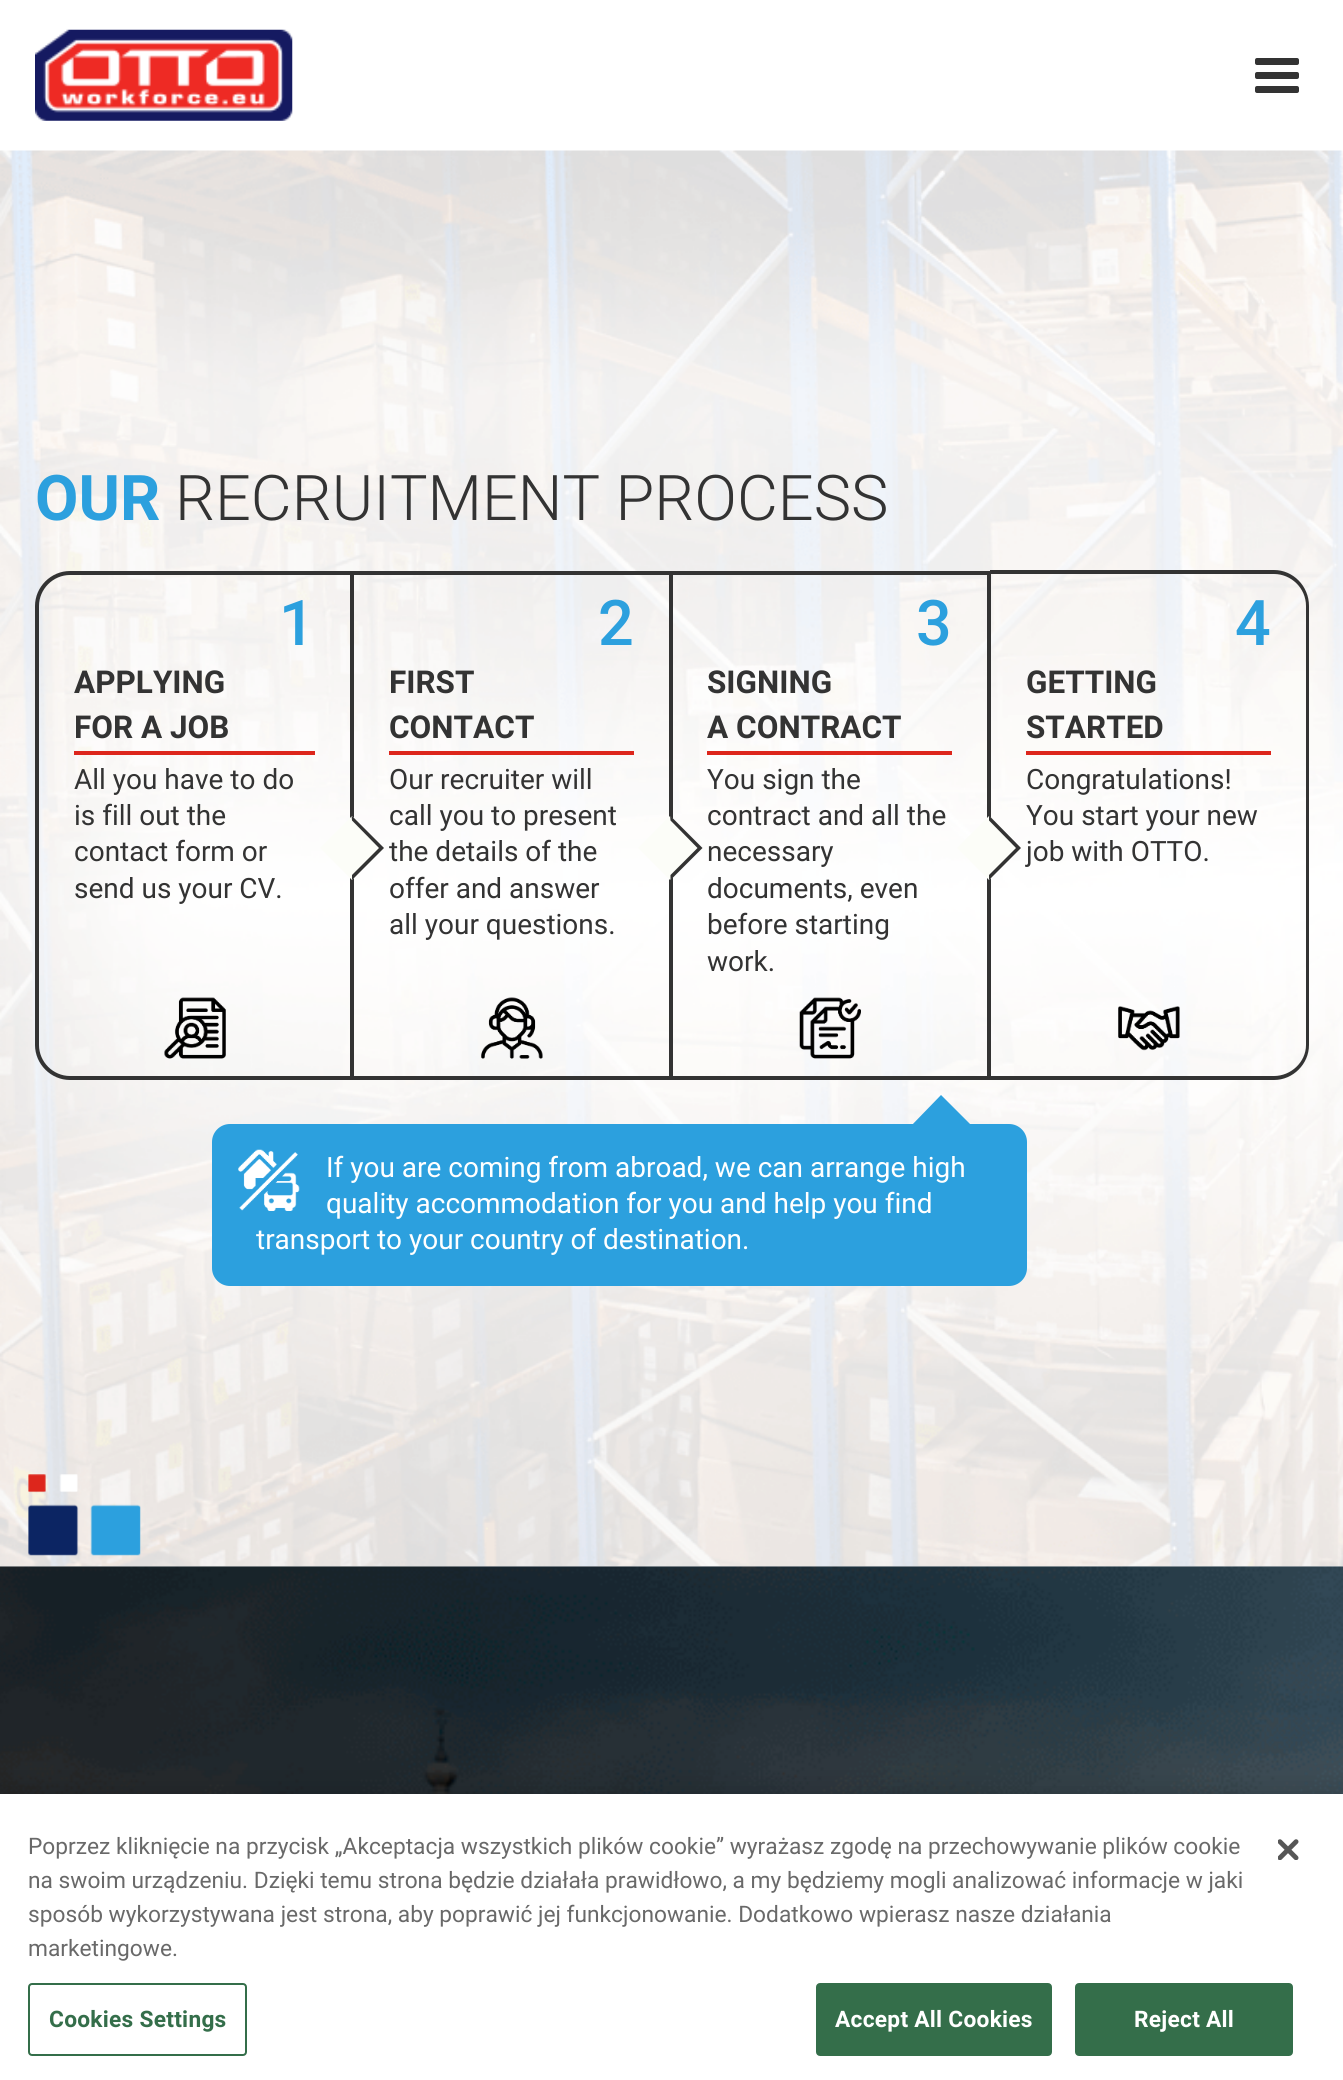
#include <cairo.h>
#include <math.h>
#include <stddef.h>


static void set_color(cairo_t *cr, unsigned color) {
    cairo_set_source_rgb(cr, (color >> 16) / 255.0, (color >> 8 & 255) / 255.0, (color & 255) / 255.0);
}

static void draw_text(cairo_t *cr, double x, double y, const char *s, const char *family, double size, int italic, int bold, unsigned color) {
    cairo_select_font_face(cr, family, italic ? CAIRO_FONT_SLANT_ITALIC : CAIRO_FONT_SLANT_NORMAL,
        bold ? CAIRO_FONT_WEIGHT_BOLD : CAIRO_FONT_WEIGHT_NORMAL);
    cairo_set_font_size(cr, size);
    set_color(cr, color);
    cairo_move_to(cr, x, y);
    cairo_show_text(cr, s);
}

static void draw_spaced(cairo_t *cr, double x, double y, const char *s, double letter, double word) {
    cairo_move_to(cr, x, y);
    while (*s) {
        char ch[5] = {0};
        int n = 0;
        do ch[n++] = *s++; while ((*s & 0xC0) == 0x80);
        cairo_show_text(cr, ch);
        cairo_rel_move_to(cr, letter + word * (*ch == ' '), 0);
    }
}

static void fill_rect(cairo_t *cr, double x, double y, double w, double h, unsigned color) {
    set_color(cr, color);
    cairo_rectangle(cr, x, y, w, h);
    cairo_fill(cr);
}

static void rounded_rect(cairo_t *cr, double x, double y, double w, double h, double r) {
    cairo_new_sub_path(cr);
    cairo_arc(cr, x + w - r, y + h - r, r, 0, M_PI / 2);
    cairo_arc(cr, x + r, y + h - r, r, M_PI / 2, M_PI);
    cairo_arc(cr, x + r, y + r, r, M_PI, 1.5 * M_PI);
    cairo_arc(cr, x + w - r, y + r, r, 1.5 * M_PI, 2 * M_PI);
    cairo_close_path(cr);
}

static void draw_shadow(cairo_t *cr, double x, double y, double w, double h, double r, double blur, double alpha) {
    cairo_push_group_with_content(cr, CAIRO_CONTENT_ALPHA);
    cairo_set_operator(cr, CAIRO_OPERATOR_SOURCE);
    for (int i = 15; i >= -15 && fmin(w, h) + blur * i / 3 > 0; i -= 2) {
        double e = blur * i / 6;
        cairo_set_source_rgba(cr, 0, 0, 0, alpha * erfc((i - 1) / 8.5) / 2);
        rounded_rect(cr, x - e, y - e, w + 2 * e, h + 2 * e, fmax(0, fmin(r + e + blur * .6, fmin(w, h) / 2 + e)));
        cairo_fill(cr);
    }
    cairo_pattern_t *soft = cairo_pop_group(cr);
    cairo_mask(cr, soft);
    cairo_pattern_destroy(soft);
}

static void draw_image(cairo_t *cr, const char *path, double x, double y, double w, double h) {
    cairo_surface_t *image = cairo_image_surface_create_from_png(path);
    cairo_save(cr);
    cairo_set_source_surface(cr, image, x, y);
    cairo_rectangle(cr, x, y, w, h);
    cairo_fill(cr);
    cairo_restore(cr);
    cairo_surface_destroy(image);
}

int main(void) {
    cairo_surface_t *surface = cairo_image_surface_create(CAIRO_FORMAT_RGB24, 1343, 2080);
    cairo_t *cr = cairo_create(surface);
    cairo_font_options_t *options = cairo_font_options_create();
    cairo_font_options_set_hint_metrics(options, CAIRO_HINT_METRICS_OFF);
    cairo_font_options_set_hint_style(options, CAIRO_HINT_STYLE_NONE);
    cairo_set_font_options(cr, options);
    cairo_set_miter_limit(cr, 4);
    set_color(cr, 0xFFFFFF);
    cairo_paint(cr);
    cairo_save(cr);
    cairo_set_fill_rule(cr, CAIRO_FILL_RULE_EVEN_ODD);
    cairo_new_path(cr);
    cairo_move_to(cr, 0, 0);
    cairo_line_to(cr, 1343, 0);
    cairo_line_to(cr, 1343, 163);
    cairo_line_to(cr, 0, 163);
    cairo_close_path(cr);
    cairo_move_to(cr, 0, 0);
    cairo_line_to(cr, 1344, 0);
    cairo_line_to(cr, 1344, 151);
    cairo_line_to(cr, 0, 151);
    cairo_close_path(cr);
    cairo_clip(cr);
    set_color(cr, 0x000000);
    draw_shadow(cr, 0, 0, 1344, 151, 0, 3.5, 0.1);
    cairo_restore(cr);
    draw_image(cr, "assets/img1.png", 35, 29, 258, 92);
    set_color(cr, 0x333333);
    rounded_rect(cr, 1255, 58, 44, 7, 2);
    cairo_fill(cr);
    rounded_rect(cr, 1255, 72, 44, 7, 2);
    cairo_fill(cr);
    rounded_rect(cr, 1255, 86, 44, 7, 2);
    cairo_fill(cr);
    draw_image(cr, "assets/img2.png", 0, 150, 1343, 1417);
    draw_text(cr, 35, 520, "OUR", "Roboto", 63, 0, 1, 0x2CA0DE);
    draw_text(cr, 175, 520, "RECRUITMENT PROCESS", "Roboto Light", 63, 0, 0, 0x333333);
    cairo_new_path(cr);
    cairo_move_to(cr, 70, 573);
    cairo_line_to(cr, 352, 573);
    cairo_line_to(cr, 352, 1078);
    cairo_line_to(cr, 70, 1078);
    cairo_curve_to(cr, 52, 1078, 37, 1063, 37, 1045);
    cairo_line_to(cr, 37, 606);
    cairo_curve_to(cr, 37, 588, 52, 573, 70, 573);
    cairo_close_path(cr);
    cairo_set_line_width(cr, 4);
    cairo_stroke(cr);
    draw_text(cr, 279, 645, "1", "Roboto Medium", 63, 0, 0, 0x2CA0DE);
    fill_rect(cr, 74, 751, 241, 4, 0xDD261C);
    draw_text(cr, 74, 693, "APPLYING", "Roboto", 31.5, 0, 1, 0x333333);
    draw_text(cr, 74, 738, "FOR A JOB", "Roboto", 31.5, 0, 1, 0x333333);
    draw_text(cr, 74, 789, "All you have to do", "Roboto", 28, 0, 0, 0x333333);
    draw_text(cr, 74, 825, "is fill out the", "Roboto", 28, 0, 0, 0x333333);
    draw_text(cr, 74, 861, "contact form or", "Roboto", 28, 0, 0, 0x333333);
    draw_text(cr, 74, 898, "send us your CV.", "Roboto", 28, 0, 0, 0x333333);
    set_color(cr, 0xFCFDF8);
    cairo_new_path(cr);
    cairo_move_to(cr, 352, 816);
    cairo_line_to(cr, 384, 848);
    cairo_line_to(cr, 352, 880);
    cairo_line_to(cr, 320, 848);
    cairo_close_path(cr);
    cairo_fill(cr);
    set_color(cr, 0x333333);
    cairo_new_path(cr);
    cairo_move_to(cr, 351.5, 815.5);
    cairo_line_to(cr, 384, 848);
    cairo_line_to(cr, 379, 848);
    cairo_line_to(cr, 352, 820.5);
    cairo_close_path(cr);
    cairo_fill(cr);
    cairo_new_path(cr);
    cairo_move_to(cr, 384, 848);
    cairo_line_to(cr, 352, 880);
    cairo_line_to(cr, 352, 875);
    cairo_line_to(cr, 379, 848);
    cairo_close_path(cr);
    cairo_fill(cr);
    draw_image(cr, "assets/img3.png", 164, 997, 62, 62);
    fill_rect(cr, 354, 571, 318, 4, 0x333333);
    fill_rect(cr, 669, 571, 4, 509, 0x333333);
    fill_rect(cr, 354, 1076, 318, 4, 0x333333);
    draw_text(cr, 598, 645, "2", "Roboto Medium", 63, 0, 0, 0x2CA0DE);
    fill_rect(cr, 389, 751, 245, 4, 0xDD261C);
    draw_text(cr, 389, 693, "FIRST", "Roboto", 31.5, 0, 1, 0x333333);
    draw_text(cr, 389, 738, "CONTACT", "Roboto", 31.5, 0, 1, 0x333333);
    draw_text(cr, 389, 789, "Our recruiter will", "Roboto", 28, 0, 0, 0x333333);
    draw_text(cr, 389, 825, "call you to present", "Roboto", 28, 0, 0, 0x333333);
    draw_text(cr, 389, 861, "the details of the", "Roboto", 28, 0, 0, 0x333333);
    draw_text(cr, 389, 898, "offer and answer", "Roboto", 28, 0, 0, 0x333333);
    draw_text(cr, 389, 934, "all your questions.", "Roboto", 28, 0, 0, 0x333333);
    set_color(cr, 0xFCFDF8);
    cairo_new_path(cr);
    cairo_move_to(cr, 670, 816);
    cairo_line_to(cr, 702, 848);
    cairo_line_to(cr, 670, 880);
    cairo_line_to(cr, 638, 848);
    cairo_close_path(cr);
    cairo_fill(cr);
    set_color(cr, 0x333333);
    cairo_new_path(cr);
    cairo_move_to(cr, 670, 815.5);
    cairo_line_to(cr, 702.5, 848);
    cairo_line_to(cr, 697.5, 848);
    cairo_line_to(cr, 670.5, 820.5);
    cairo_close_path(cr);
    cairo_fill(cr);
    cairo_new_path(cr);
    cairo_move_to(cr, 702.5, 848);
    cairo_line_to(cr, 670.5, 880);
    cairo_line_to(cr, 670.5, 875);
    cairo_line_to(cr, 697.5, 848);
    cairo_close_path(cr);
    cairo_fill(cr);
    draw_image(cr, "assets/img4.png", 481, 997, 62, 62);
    fill_rect(cr, 672, 571, 319, 4, 0x333333);
    fill_rect(cr, 987, 571, 4, 509, 0x333333);
    fill_rect(cr, 672, 1076, 319, 4, 0x333333);
    draw_text(cr, 916, 645, "3", "Roboto Medium", 63, 0, 0, 0x2CA0DE);
    fill_rect(cr, 707, 751, 245, 4, 0xDD261C);
    draw_text(cr, 707, 693, "SIGNING", "Roboto", 31.5, 0, 1, 0x333333);
    draw_text(cr, 707, 738, "A CONTRACT", "Roboto", 31.5, 0, 1, 0x333333);
    draw_text(cr, 707, 789, "You sign the", "Roboto", 28, 0, 0, 0x333333);
    draw_text(cr, 707, 825, "contract and all the", "Roboto", 28, 0, 0, 0x333333);
    draw_text(cr, 707, 861, "necessary", "Roboto", 28, 0, 0, 0x333333);
    draw_text(cr, 707, 898, "documents, even", "Roboto", 28, 0, 0, 0x333333);
    draw_text(cr, 707, 934, "before starting", "Roboto", 28, 0, 0, 0x333333);
    draw_text(cr, 707, 971, "work.", "Roboto", 28, 0, 0, 0x333333);
    set_color(cr, 0xFCFDF8);
    cairo_new_path(cr);
    cairo_move_to(cr, 989, 816);
    cairo_line_to(cr, 1021, 848);
    cairo_line_to(cr, 989, 880);
    cairo_line_to(cr, 957, 848);
    cairo_close_path(cr);
    cairo_fill(cr);
    set_color(cr, 0x333333);
    cairo_new_path(cr);
    cairo_move_to(cr, 989, 815.5);
    cairo_line_to(cr, 1021, 848);
    cairo_line_to(cr, 1016, 848);
    cairo_line_to(cr, 989, 820.5);
    cairo_close_path(cr);
    cairo_fill(cr);
    cairo_new_path(cr);
    cairo_move_to(cr, 1021, 848);
    cairo_line_to(cr, 989, 880);
    cairo_line_to(cr, 989, 875);
    cairo_line_to(cr, 1016, 848);
    cairo_close_path(cr);
    cairo_fill(cr);
    draw_image(cr, "assets/img5.png", 799, 997, 62, 62);
    cairo_set_fill_rule(cr, CAIRO_FILL_RULE_EVEN_ODD);
    cairo_new_path(cr);
    cairo_move_to(cr, 990, 570);
    cairo_line_to(cr, 1274, 570);
    cairo_curve_to(cr, 1293, 570, 1309, 586, 1309, 606);
    cairo_line_to(cr, 1309, 1045);
    cairo_curve_to(cr, 1309, 1064, 1293, 1080, 1274, 1080);
    cairo_line_to(cr, 990, 1080);
    cairo_close_path(cr);
    cairo_move_to(cr, 990, 574);
    cairo_line_to(cr, 1274, 574);
    cairo_curve_to(cr, 1291, 574, 1306, 588, 1306, 606);
    cairo_line_to(cr, 1306, 1045);
    cairo_curve_to(cr, 1306, 1062, 1291, 1076, 1274, 1076);
    cairo_line_to(cr, 990, 1076);
    cairo_close_path(cr);
    cairo_fill(cr);
    draw_text(cr, 1235, 645, "4", "Roboto Medium", 63, 0, 0, 0x2CA0DE);
    fill_rect(cr, 1026, 751, 245, 4, 0xDD261C);
    draw_text(cr, 1026, 693, "GETTING", "Roboto", 31.5, 0, 1, 0x333333);
    draw_text(cr, 1026, 738, "STARTED", "Roboto", 31.5, 0, 1, 0x333333);
    draw_text(cr, 1026, 789, "Congratulations!", "Roboto", 28, 0, 0, 0x333333);
    draw_text(cr, 1026, 825, "You start your new", "Roboto", 28, 0, 0, 0x333333);
    draw_text(cr, 1026, 861, "job with OTTO.", "Roboto", 28, 0, 0, 0x333333);
    draw_image(cr, "assets/img6.png", 1118, 1006, 62, 45);
    set_color(cr, 0x2CA0DE);
    rounded_rect(cr, 212, 1124, 815, 162, 18);
    cairo_fill(cr);
    draw_text(cr, 326, 1177, "If you are coming from abroad, we can arrange high", "Roboto", 28, 0, 0, 0xFFFFFF);
    set_color(cr, 0x2CA0DE);
    cairo_set_fill_rule(cr, CAIRO_FILL_RULE_WINDING);
    cairo_new_path(cr);
    cairo_move_to(cr, 974, 1128);
    cairo_line_to(cr, 941, 1160);
    cairo_line_to(cr, 909, 1128);
    cairo_line_to(cr, 941, 1095);
    cairo_close_path(cr);
    cairo_fill(cr);
    draw_image(cr, "assets/img7.png", 238, 1149, 62, 62);
    draw_text(cr, 326, 1213, "quality accommodation for you and help you find", "Roboto", 28, 0, 0, 0xFFFFFF);
    draw_text(cr, 256, 1249, "transport to your country of destination.", "Roboto", 28, 0, 0, 0xFFFFFF);
    draw_image(cr, "assets/img8.png", 28, 1474, 113, 82);
    draw_image(cr, "assets/img9.png", 0, 1566, 1343, 228);
    set_color(cr, 0x000000);
    draw_shadow(cr, 0, 1794, 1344, 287, 0, 16, 0.2);
    fill_rect(cr, 0, 1794, 1343, 286, 0xFFFFFF);
    draw_text(cr, 28, 1854, "Poprzez kliknięcie na przycisk „Akceptacja wszystkich plików cookie” wyrażasz zgodę na przechowywanie plików cookie", "Roboto", 22.75, 0, 0, 0x696969);
    draw_text(cr, 28, 1888, "na swoim urządzeniu. Dzięki temu strona będzie działała prawidłowo, a my będziemy mogli analizować informacje w jaki", "Roboto", 22.75, 0, 0, 0x696969);
    draw_text(cr, 28, 1922, "sposób wykorzystywana jest strona, aby poprawić jej funkcjonowanie. Dodatkowo", "Roboto", 22.75, 0, 0, 0x696969);
    draw_text(cr, 859, 1922, "wpierasz nasze działania", "Roboto", 22.75, 0, 0, 0x696969);
    draw_text(cr, 28, 1956, "marketingowe.", "Roboto", 22.75, 0, 0, 0x696969);
    rounded_rect(cr, 29, 1984, 217, 71, 3);
    set_color(cr, 0x346E4A);
    cairo_set_line_width(cr, 2);
    cairo_stroke(cr);
    cairo_select_font_face(cr, "Roboto", CAIRO_FONT_SLANT_NORMAL, CAIRO_FONT_WEIGHT_BOLD);
    draw_spaced(cr, 49, 2027, "Cookies Settings", 0.25, 0);
    rounded_rect(cr, 817, 1984, 234, 71, 3);
    cairo_fill_preserve(cr);
    cairo_stroke(cr);
    set_color(cr, 0xFFFFFF);
    draw_spaced(cr, 835, 2027, "Accept All Cookies", 0.25, 0);
    set_color(cr, 0x346E4A);
    rounded_rect(cr, 1076, 1984, 216, 71, 3);
    cairo_fill_preserve(cr);
    cairo_stroke(cr);
    set_color(cr, 0xFFFFFF);
    draw_spaced(cr, 1134, 2027, "Reject All", 0.25, 0);
    draw_image(cr, "assets/img10.png", 1278, 1839, 21, 21);
    cairo_surface_write_to_png(surface, "output.png");
    cairo_font_options_destroy(options);
    cairo_destroy(cr);
    cairo_surface_destroy(surface);
    return 0;
}
